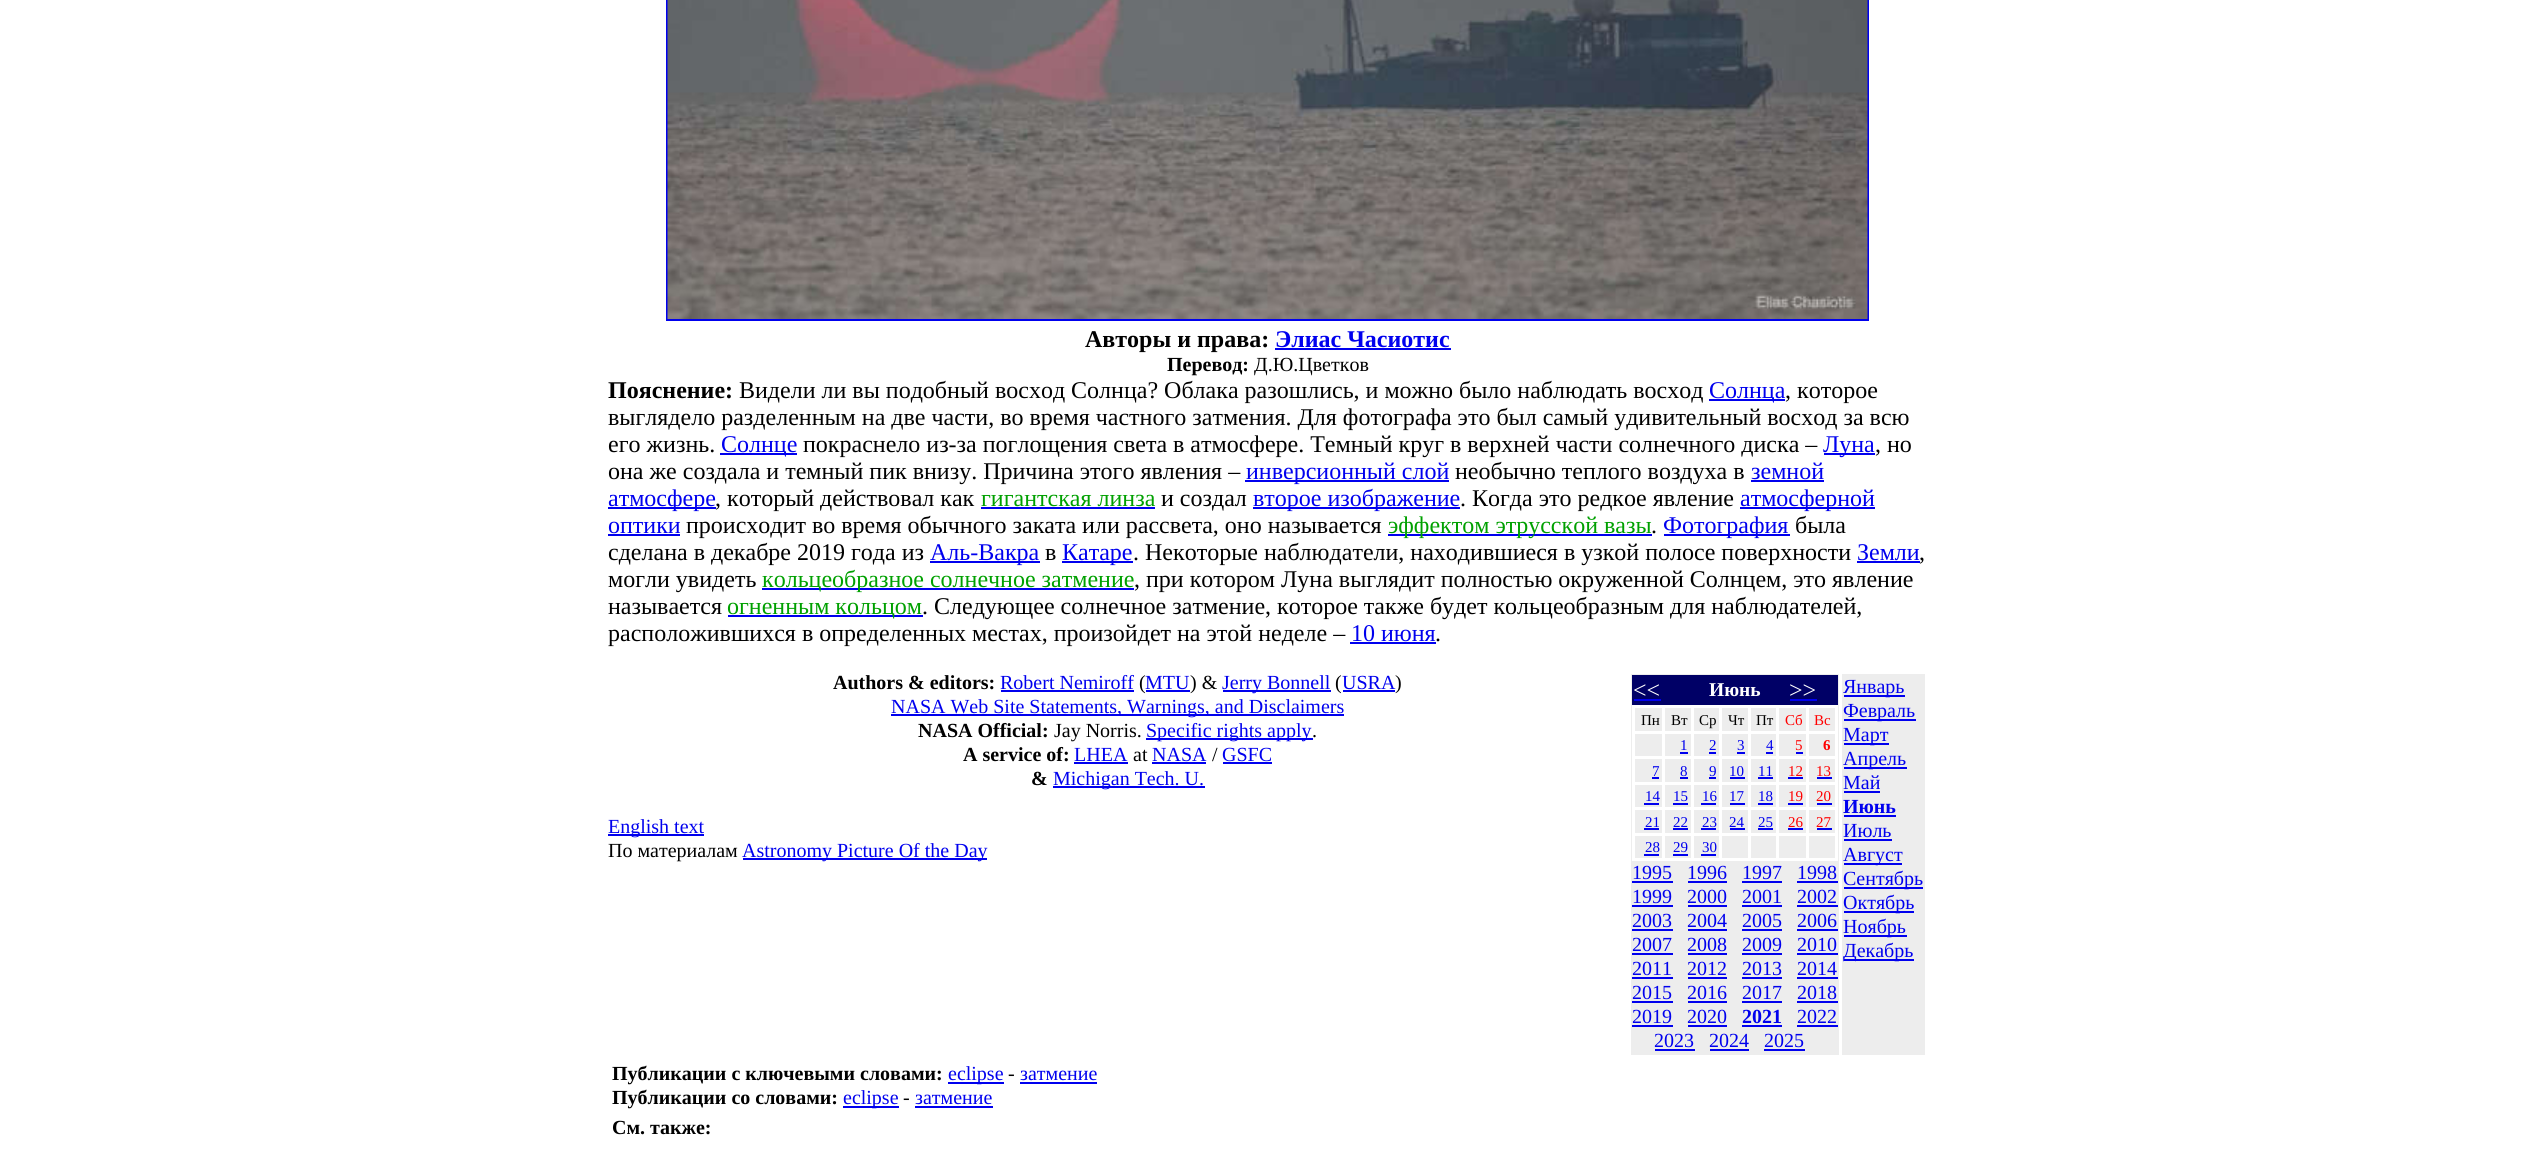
#include <cairo.h>
#include <math.h>
#include <stddef.h>


static void set_color(cairo_t *cr, unsigned color) {
    cairo_set_source_rgb(cr, (color >> 16) / 255.0, (color >> 8 & 255) / 255.0, (color & 255) / 255.0);
}

static void draw_text(cairo_t *cr, double x, double y, const char *s, const char *family, double size, int italic, int bold, unsigned color) {
    cairo_select_font_face(cr, family, italic ? CAIRO_FONT_SLANT_ITALIC : CAIRO_FONT_SLANT_NORMAL,
        bold ? CAIRO_FONT_WEIGHT_BOLD : CAIRO_FONT_WEIGHT_NORMAL);
    cairo_set_font_size(cr, size);
    set_color(cr, color);
    cairo_move_to(cr, x, y);
    cairo_show_text(cr, s);
}

static void fill_rect(cairo_t *cr, double x, double y, double w, double h, unsigned color) {
    set_color(cr, color);
    cairo_rectangle(cr, x, y, w, h);
    cairo_fill(cr);
}

static void draw_image(cairo_t *cr, const char *path, double x, double y, double w, double h) {
    cairo_surface_t *image = cairo_image_surface_create_from_png(path);
    cairo_save(cr);
    cairo_set_source_surface(cr, image, x, y);
    cairo_rectangle(cr, x, y, w, h);
    cairo_fill(cr);
    cairo_restore(cr);
    cairo_surface_destroy(image);
}

int main(void) {
    cairo_surface_t *surface = cairo_image_surface_create(CAIRO_FORMAT_RGB24, 2534, 1155);
    cairo_t *cr = cairo_create(surface);
    cairo_font_options_t *options = cairo_font_options_create();
    cairo_font_options_set_hint_metrics(options, CAIRO_HINT_METRICS_OFF);
    cairo_font_options_set_hint_style(options, CAIRO_HINT_STYLE_NONE);
    cairo_set_font_options(cr, options);
    cairo_set_miter_limit(cr, 4);
    set_color(cr, 0xFFFFFF);
    cairo_paint(cr);
    cairo_rectangle(cr, 667, -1, 1201, 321);
    set_color(cr, 0x0000EE);
    cairo_stroke(cr);
    draw_image(cr, "assets/img1.png", 667, 0, 1201, 319);
    draw_text(cr, 1085, 347, "Авторы и права:", "Liberation Serif", 24, 0, 1, 0x000000);
    draw_text(cr, 1275, 347, "Элиас Часиотис", "Liberation Serif", 24, 0, 1, 0x0000EE);
    fill_rect(cr, 1275, 348, 176, 2, 0x0000EE);
    draw_text(cr, 1167, 371, "Перевод:", "Liberation Serif", 20, 0, 1, 0x000000);
    draw_text(cr, 1254, 371, "Д.Ю.Цветков", "Liberation Serif", 20, 0, 0, 0x000000);
    draw_text(cr, 608, 398, "Пояснение:", "Liberation Serif", 24, 0, 1, 0x000000);
    draw_text(cr, 739, 398, "Видели ли вы подобный восход Солнца? Облака разошлись, и можно было наблюдать восход", "Liberation Serif", 24, 0, 0, 0x000000);
    fill_rect(cr, 1709, 399, 76, 2, 0x0000EE);
    draw_text(cr, 1709, 398, "Солнца", "Liberation Serif", 24, 0, 0, 0x0000EE);
    draw_text(cr, 1785, 398, ", которое", "Liberation Serif", 24, 0, 0, 0x000000);
    draw_text(cr, 608, 425, "выглядело разделенным на две части, во время частного затмения. Для фотографа это был самый удивительный восход за всю", "Liberation Serif", 24, 0, 0, 0x000000);
    draw_text(cr, 608, 452, "его жизнь.", "Liberation Serif", 24, 0, 0, 0x000000);
    fill_rect(cr, 720, 453, 77, 2, 0x0000EE);
    draw_text(cr, 721, 452, "Солнце", "Liberation Serif", 24, 0, 0, 0x0000EE);
    draw_text(cr, 803, 452, "покраснело из-за поглощения света в атмосфере. Темный круг в верхней части солнечного диска –", "Liberation Serif", 24, 0, 0, 0x000000);
    fill_rect(cr, 1824, 453, 51, 2, 0x0000EE);
    draw_text(cr, 1823, 452, "Луна", "Liberation Serif", 24, 0, 0, 0x0000EE);
    draw_text(cr, 1875, 452, ", но", "Liberation Serif", 24, 0, 0, 0x000000);
    draw_text(cr, 608, 479, "она же создала и темный пик внизу. Причина этого явления –", "Liberation Serif", 24, 0, 0, 0x000000);
    fill_rect(cr, 1245, 480, 204, 2, 0x0000EE);
    draw_text(cr, 1246, 479, "инверсионный слой", "Liberation Serif", 24, 0, 0, 0x0000EE);
    draw_text(cr, 1455, 479, "необычно теплого воздуха в", "Liberation Serif", 24, 0, 0, 0x000000);
    draw_text(cr, 1751, 479, "земной", "Liberation Serif", 24, 0, 0, 0x0000EE);
    fill_rect(cr, 1751, 480, 73, 2, 0x0000EE);
    fill_rect(cr, 608, 507, 108, 2, 0x0000EE);
    draw_text(cr, 608, 506, "атмосфере", "Liberation Serif", 24, 0, 0, 0x0000EE);
    draw_text(cr, 715, 506, ", который действовал как", "Liberation Serif", 24, 0, 0, 0x000000);
    draw_text(cr, 981, 506, "гигантская линза", "Liberation Serif", 24, 0, 0, 0x00A000);
    fill_rect(cr, 981, 507, 174, 2, 0x0000EE);
    draw_text(cr, 1161, 506, "и создал", "Liberation Serif", 24, 0, 0, 0x000000);
    fill_rect(cr, 1253, 507, 207, 2, 0x0000EE);
    draw_text(cr, 1253, 506, "второе изображение", "Liberation Serif", 24, 0, 0, 0x0000EE);
    draw_text(cr, 1460, 506, ". Когда это редкое явление", "Liberation Serif", 24, 0, 0, 0x000000);
    fill_rect(cr, 1740, 507, 135, 2, 0x0000EE);
    draw_text(cr, 1740, 506, "атмосферной", "Liberation Serif", 24, 0, 0, 0x0000EE);
    draw_text(cr, 608, 533, "оптики", "Liberation Serif", 24, 0, 0, 0x0000EE);
    fill_rect(cr, 608, 534, 72, 2, 0x0000EE);
    draw_text(cr, 686, 533, "происходит во время обычного заката или рассвета, оно называется", "Liberation Serif", 24, 0, 0, 0x000000);
    fill_rect(cr, 1388, 534, 264, 2, 0x0000EE);
    draw_text(cr, 1388, 533, "эффектом этрусской вазы", "Liberation Serif", 24, 0, 0, 0x00A000);
    draw_text(cr, 1651, 533, ".", "Liberation Serif", 24, 0, 0, 0x000000);
    fill_rect(cr, 1664, 534, 126, 2, 0x0000EE);
    draw_text(cr, 1663, 533, "Фотография", "Liberation Serif", 24, 0, 0, 0x0000EE);
    draw_text(cr, 1795, 533, "была", "Liberation Serif", 24, 0, 0, 0x000000);
    draw_text(cr, 608, 560, "сделана в декабре 2019 года из", "Liberation Serif", 24, 0, 0, 0x000000);
    fill_rect(cr, 930, 561, 110, 2, 0x0000EE);
    draw_text(cr, 930, 560, "Аль-Вакра", "Liberation Serif", 24, 0, 0, 0x0000EE);
    draw_text(cr, 1045, 560, "в", "Liberation Serif", 24, 0, 0, 0x000000);
    fill_rect(cr, 1062, 561, 71, 2, 0x0000EE);
    draw_text(cr, 1062, 560, "Катаре", "Liberation Serif", 24, 0, 0, 0x0000EE);
    draw_text(cr, 1133, 560, ". Некоторые наблюдатели, находившиеся в узкой полосе поверхности", "Liberation Serif", 24, 0, 0, 0x000000);
    draw_text(cr, 1857, 560, "Земли", "Liberation Serif", 24, 0, 0, 0x0000EE);
    fill_rect(cr, 1857, 561, 63, 2, 0x0000EE);
    draw_text(cr, 1919, 560, ",", "Liberation Serif", 24, 0, 0, 0x000000);
    draw_text(cr, 608, 587, "могли увидеть", "Liberation Serif", 24, 0, 0, 0x000000);
    fill_rect(cr, 762, 588, 372, 2, 0x0000EE);
    draw_text(cr, 762, 587, "кольцеобразное солнечное затмение", "Liberation Serif", 24, 0, 0, 0x00A000);
    draw_text(cr, 1134, 587, ", при котором Луна выглядит полностью окруженной Солнцем, это явление", "Liberation Serif", 24, 0, 0, 0x000000);
    draw_text(cr, 608, 614, "называется", "Liberation Serif", 24, 0, 0, 0x000000);
    fill_rect(cr, 728, 615, 195, 2, 0x0000EE);
    draw_text(cr, 727, 614, "огненным кольцом", "Liberation Serif", 24, 0, 0, 0x00A000);
    draw_text(cr, 922, 614, ". Следующее солнечное затмение, которое также будет кольцеобразным для наблюдателей,", "Liberation Serif", 24, 0, 0, 0x000000);
    draw_text(cr, 608, 641, "расположившихся в определенных местах, произойдет на этой неделе –", "Liberation Serif", 24, 0, 0, 0x000000);
    draw_text(cr, 1351, 641, "10 июня", "Liberation Serif", 24, 0, 0, 0x0000EE);
    fill_rect(cr, 1350, 642, 86, 2, 0x0000EE);
    draw_text(cr, 1435, 641, ".", "Liberation Serif", 24, 0, 0, 0x000000);
    fill_rect(cr, 608, 834, 96, 2, 0x0000EE);
    draw_text(cr, 608, 833, "English text", "Liberation Serif", 20, 0, 0, 0x0000EE);
    draw_text(cr, 608, 857, "По материалам", "Liberation Serif", 20, 0, 0, 0x000000);
    fill_rect(cr, 743, 858, 244, 2, 0x0000EE);
    draw_text(cr, 742, 857, "Astronomy Picture Of the Day", "Liberation Serif", 20, 0, 0, 0x0000EE);
    draw_text(cr, 833, 689, "Authors & editors:", "Liberation Serif", 20, 0, 1, 0x000000);
    draw_text(cr, 1000, 689, "Robert Nemiroff", "Liberation Serif", 20, 0, 0, 0x0000EE);
    fill_rect(cr, 1001, 690, 133, 2, 0x0000EE);
    draw_text(cr, 1139, 689, "(", "Liberation Serif", 20, 0, 0, 0x000000);
    draw_text(cr, 1145, 689, "MTU", "Liberation Serif", 20, 0, 0, 0x0000EE);
    draw_text(cr, 1190, 689, ") &", "Liberation Serif", 20, 0, 0, 0x000000);
    fill_rect(cr, 1146, 690, 44, 2, 0x0000EE);
    fill_rect(cr, 1223, 690, 108, 2, 0x0000EE);
    draw_text(cr, 1222, 689, "Jerry Bonnell", "Liberation Serif", 20, 0, 0, 0x0000EE);
    draw_text(cr, 1335, 689, "(", "Liberation Serif", 20, 0, 0, 0x000000);
    fill_rect(cr, 1343, 690, 52, 2, 0x0000EE);
    draw_text(cr, 1342, 689, "USRA", "Liberation Serif", 20, 0, 0, 0x0000EE);
    draw_text(cr, 1395, 689, ")", "Liberation Serif", 20, 0, 0, 0x000000);
    fill_rect(cr, 1631, 674, 208, 381, 0xEDEDED);
    fill_rect(cr, 1632, 675, 206, 30, 0x000066);
    draw_text(cr, 1633, 698, "<<", "Liberation Serif", 24, 0, 0, 0xFFFFFF);
    fill_rect(cr, 1634, 699, 27, 2, 0x0000EE);
    draw_text(cr, 1709, 696, "Июнь", "Liberation Serif", 19.5, 0, 1, 0xFFFFFF);
    draw_text(cr, 1789, 698, ">>", "Liberation Serif", 24, 0, 0, 0xFFFFFF);
    fill_rect(cr, 1790, 699, 27, 2, 0x0000EE);
    fill_rect(cr, 1632, 705, 206, 156, 0xFFFFFF);
    fill_rect(cr, 1635, 708, 27, 23, 0xEDEDED);
    draw_text(cr, 1641, 725, "Пн", "Liberation Serif", 15, 0, 0, 0x000000);
    fill_rect(cr, 1665, 708, 26, 23, 0xEDEDED);
    draw_text(cr, 1671, 725, "Вт", "Liberation Serif", 15, 0, 0, 0x000000);
    fill_rect(cr, 1694, 708, 25, 23, 0xEDEDED);
    draw_text(cr, 1699, 725, "Ср", "Liberation Serif", 15, 0, 0, 0x000000);
    fill_rect(cr, 1722, 708, 26, 23, 0xEDEDED);
    draw_text(cr, 1728, 725, "Чт", "Liberation Serif", 15, 0, 0, 0x000000);
    fill_rect(cr, 1751, 708, 25, 23, 0xEDEDED);
    draw_text(cr, 1756, 725, "Пт", "Liberation Serif", 15, 0, 0, 0x000000);
    fill_rect(cr, 1779, 708, 27, 23, 0xEDEDED);
    draw_text(cr, 1785, 725, "Сб", "Liberation Serif", 15, 0, 0, 0xFF0000);
    fill_rect(cr, 1809, 708, 26, 23, 0xEDEDED);
    draw_text(cr, 1814, 725, "Вс", "Liberation Serif", 15, 0, 0, 0xFF0000);
    fill_rect(cr, 1635, 734, 27, 22, 0xEDEDED);
    fill_rect(cr, 1665, 734, 26, 22, 0xEDEDED);
    draw_text(cr, 1680, 750, "1", "Liberation Serif", 15, 0, 0, 0x0000EE);
    fill_rect(cr, 1680, 752, 8, 2, 0x0000EE);
    fill_rect(cr, 1694, 734, 25, 22, 0xEDEDED);
    draw_text(cr, 1709, 750, "2", "Liberation Serif", 15, 0, 0, 0x0000EE);
    fill_rect(cr, 1709, 752, 7, 2, 0x0000EE);
    fill_rect(cr, 1722, 734, 26, 22, 0xEDEDED);
    draw_text(cr, 1737, 750, "3", "Liberation Serif", 15, 0, 0, 0x0000EE);
    fill_rect(cr, 1737, 752, 8, 2, 0x0000EE);
    fill_rect(cr, 1751, 734, 25, 22, 0xEDEDED);
    draw_text(cr, 1766, 750, "4", "Liberation Serif", 15, 0, 0, 0x0000EE);
    fill_rect(cr, 1766, 752, 7, 2, 0x0000EE);
    fill_rect(cr, 1779, 734, 27, 22, 0xEDEDED);
    draw_text(cr, 1795, 750, "5", "Liberation Serif", 15, 0, 0, 0xFF0000);
    fill_rect(cr, 1796, 752, 7, 2, 0x0000EE);
    fill_rect(cr, 1809, 734, 26, 22, 0xEDEDED);
    draw_text(cr, 1823, 750, "6", "Liberation Serif", 15, 0, 1, 0xFF0000);
    fill_rect(cr, 1635, 759, 27, 23, 0xEDEDED);
    draw_text(cr, 1652, 776, "7", "Liberation Serif", 15, 0, 0, 0x0000EE);
    fill_rect(cr, 1652, 777, 7, 2, 0x0000EE);
    fill_rect(cr, 1665, 759, 26, 23, 0xEDEDED);
    draw_text(cr, 1680, 776, "8", "Liberation Serif", 15, 0, 0, 0x0000EE);
    fill_rect(cr, 1680, 777, 8, 2, 0x0000EE);
    fill_rect(cr, 1694, 759, 25, 23, 0xEDEDED);
    draw_text(cr, 1709, 776, "9", "Liberation Serif", 15, 0, 0, 0x0000EE);
    fill_rect(cr, 1709, 777, 7, 2, 0x0000EE);
    fill_rect(cr, 1722, 759, 26, 23, 0xEDEDED);
    draw_text(cr, 1729, 776, "10", "Liberation Serif", 15, 0, 0, 0x0000EE);
    fill_rect(cr, 1730, 777, 15, 2, 0x0000EE);
    fill_rect(cr, 1751, 759, 25, 23, 0xEDEDED);
    draw_text(cr, 1758, 776, "11", "Liberation Serif", 15, 0, 0, 0x0000EE);
    fill_rect(cr, 1758, 777, 15, 2, 0x0000EE);
    fill_rect(cr, 1779, 759, 27, 23, 0xEDEDED);
    draw_text(cr, 1788, 776, "12", "Liberation Serif", 15, 0, 0, 0xFF0000);
    fill_rect(cr, 1788, 777, 15, 2, 0x0000EE);
    fill_rect(cr, 1809, 759, 26, 23, 0xEDEDED);
    draw_text(cr, 1816, 776, "13", "Liberation Serif", 15, 0, 0, 0xFF0000);
    fill_rect(cr, 1817, 777, 15, 2, 0x0000EE);
    fill_rect(cr, 1635, 785, 27, 22, 0xEDEDED);
    draw_text(cr, 1645, 801, "14", "Liberation Serif", 15, 0, 0, 0x0000EE);
    fill_rect(cr, 1644, 803, 15, 2, 0x0000EE);
    fill_rect(cr, 1665, 785, 26, 22, 0xEDEDED);
    draw_text(cr, 1673, 801, "15", "Liberation Serif", 15, 0, 0, 0x0000EE);
    fill_rect(cr, 1673, 803, 15, 2, 0x0000EE);
    fill_rect(cr, 1694, 785, 25, 22, 0xEDEDED);
    draw_text(cr, 1702, 801, "16", "Liberation Serif", 15, 0, 0, 0x0000EE);
    fill_rect(cr, 1701, 803, 15, 2, 0x0000EE);
    fill_rect(cr, 1722, 785, 26, 22, 0xEDEDED);
    draw_text(cr, 1729, 801, "17", "Liberation Serif", 15, 0, 0, 0x0000EE);
    fill_rect(cr, 1730, 803, 15, 2, 0x0000EE);
    fill_rect(cr, 1751, 785, 25, 22, 0xEDEDED);
    draw_text(cr, 1758, 801, "18", "Liberation Serif", 15, 0, 0, 0x0000EE);
    fill_rect(cr, 1758, 803, 15, 2, 0x0000EE);
    fill_rect(cr, 1779, 785, 27, 22, 0xEDEDED);
    draw_text(cr, 1788, 801, "19", "Liberation Serif", 15, 0, 0, 0xFF0000);
    fill_rect(cr, 1788, 803, 15, 2, 0x0000EE);
    fill_rect(cr, 1809, 785, 26, 22, 0xEDEDED);
    draw_text(cr, 1816, 801, "20", "Liberation Serif", 15, 0, 0, 0xFF0000);
    fill_rect(cr, 1817, 803, 15, 2, 0x0000EE);
    fill_rect(cr, 1635, 810, 27, 23, 0xEDEDED);
    draw_text(cr, 1645, 827, "21", "Liberation Serif", 15, 0, 0, 0x0000EE);
    fill_rect(cr, 1644, 828, 15, 2, 0x0000EE);
    fill_rect(cr, 1665, 810, 26, 23, 0xEDEDED);
    draw_text(cr, 1673, 827, "22", "Liberation Serif", 15, 0, 0, 0x0000EE);
    fill_rect(cr, 1673, 828, 15, 2, 0x0000EE);
    fill_rect(cr, 1694, 810, 25, 23, 0xEDEDED);
    draw_text(cr, 1702, 827, "23", "Liberation Serif", 15, 0, 0, 0x0000EE);
    fill_rect(cr, 1701, 828, 15, 2, 0x0000EE);
    fill_rect(cr, 1722, 810, 26, 23, 0xEDEDED);
    draw_text(cr, 1729, 827, "24", "Liberation Serif", 15, 0, 0, 0x0000EE);
    fill_rect(cr, 1730, 828, 15, 2, 0x0000EE);
    fill_rect(cr, 1751, 810, 25, 23, 0xEDEDED);
    draw_text(cr, 1758, 827, "25", "Liberation Serif", 15, 0, 0, 0x0000EE);
    fill_rect(cr, 1758, 828, 15, 2, 0x0000EE);
    fill_rect(cr, 1779, 810, 27, 23, 0xEDEDED);
    draw_text(cr, 1788, 827, "26", "Liberation Serif", 15, 0, 0, 0xFF0000);
    fill_rect(cr, 1788, 828, 15, 2, 0x0000EE);
    fill_rect(cr, 1809, 810, 26, 23, 0xEDEDED);
    draw_text(cr, 1816, 827, "27", "Liberation Serif", 15, 0, 0, 0xFF0000);
    fill_rect(cr, 1817, 828, 15, 2, 0x0000EE);
    fill_rect(cr, 1635, 836, 27, 22, 0xEDEDED);
    draw_text(cr, 1645, 852, "28", "Liberation Serif", 15, 0, 0, 0x0000EE);
    fill_rect(cr, 1644, 854, 15, 2, 0x0000EE);
    fill_rect(cr, 1665, 836, 26, 22, 0xEDEDED);
    draw_text(cr, 1673, 852, "29", "Liberation Serif", 15, 0, 0, 0x0000EE);
    fill_rect(cr, 1673, 854, 15, 2, 0x0000EE);
    fill_rect(cr, 1694, 836, 25, 22, 0xEDEDED);
    draw_text(cr, 1702, 852, "30", "Liberation Serif", 15, 0, 0, 0x0000EE);
    fill_rect(cr, 1701, 854, 15, 2, 0x0000EE);
    fill_rect(cr, 1722, 836, 26, 22, 0xEDEDED);
    fill_rect(cr, 1751, 836, 25, 22, 0xEDEDED);
    fill_rect(cr, 1779, 836, 27, 22, 0xEDEDED);
    fill_rect(cr, 1809, 836, 26, 22, 0xEDEDED);
    draw_text(cr, 1632, 879, "1995", "Liberation Serif", 20, 0, 0, 0x0000EE);
    fill_rect(cr, 1632, 881, 41, 2, 0x0000EE);
    draw_text(cr, 1687, 879, "1996", "Liberation Serif", 20, 0, 0, 0x0000EE);
    fill_rect(cr, 1688, 881, 39, 2, 0x0000EE);
    draw_text(cr, 1742, 879, "1997", "Liberation Serif", 20, 0, 0, 0x0000EE);
    fill_rect(cr, 1742, 881, 40, 2, 0x0000EE);
    draw_text(cr, 1797, 879, "1998", "Liberation Serif", 20, 0, 0, 0x0000EE);
    fill_rect(cr, 1797, 881, 41, 2, 0x0000EE);
    draw_text(cr, 1632, 903, "1999", "Liberation Serif", 20, 0, 0, 0x0000EE);
    fill_rect(cr, 1632, 905, 41, 2, 0x0000EE);
    draw_text(cr, 1687, 903, "2000", "Liberation Serif", 20, 0, 0, 0x0000EE);
    fill_rect(cr, 1688, 905, 39, 2, 0x0000EE);
    draw_text(cr, 1742, 903, "2001", "Liberation Serif", 20, 0, 0, 0x0000EE);
    fill_rect(cr, 1742, 905, 40, 2, 0x0000EE);
    draw_text(cr, 1797, 903, "2002", "Liberation Serif", 20, 0, 0, 0x0000EE);
    fill_rect(cr, 1797, 905, 41, 2, 0x0000EE);
    draw_text(cr, 1632, 927, "2003", "Liberation Serif", 20, 0, 0, 0x0000EE);
    fill_rect(cr, 1632, 929, 41, 2, 0x0000EE);
    draw_text(cr, 1687, 927, "2004", "Liberation Serif", 20, 0, 0, 0x0000EE);
    fill_rect(cr, 1688, 929, 39, 2, 0x0000EE);
    draw_text(cr, 1742, 927, "2005", "Liberation Serif", 20, 0, 0, 0x0000EE);
    fill_rect(cr, 1742, 929, 40, 2, 0x0000EE);
    draw_text(cr, 1797, 927, "2006", "Liberation Serif", 20, 0, 0, 0x0000EE);
    fill_rect(cr, 1797, 929, 41, 2, 0x0000EE);
    draw_text(cr, 1632, 951, "2007", "Liberation Serif", 20, 0, 0, 0x0000EE);
    fill_rect(cr, 1632, 953, 41, 2, 0x0000EE);
    draw_text(cr, 1687, 951, "2008", "Liberation Serif", 20, 0, 0, 0x0000EE);
    fill_rect(cr, 1688, 953, 39, 2, 0x0000EE);
    draw_text(cr, 1742, 951, "2009", "Liberation Serif", 20, 0, 0, 0x0000EE);
    fill_rect(cr, 1742, 953, 40, 2, 0x0000EE);
    draw_text(cr, 1797, 951, "2010", "Liberation Serif", 20, 0, 0, 0x0000EE);
    fill_rect(cr, 1797, 953, 41, 2, 0x0000EE);
    draw_text(cr, 1632, 975, "2011", "Liberation Serif", 20, 0, 0, 0x0000EE);
    fill_rect(cr, 1632, 977, 41, 2, 0x0000EE);
    draw_text(cr, 1687, 975, "2012", "Liberation Serif", 20, 0, 0, 0x0000EE);
    fill_rect(cr, 1688, 977, 39, 2, 0x0000EE);
    draw_text(cr, 1742, 975, "2013", "Liberation Serif", 20, 0, 0, 0x0000EE);
    fill_rect(cr, 1742, 977, 40, 2, 0x0000EE);
    draw_text(cr, 1797, 975, "2014", "Liberation Serif", 20, 0, 0, 0x0000EE);
    fill_rect(cr, 1797, 977, 41, 2, 0x0000EE);
    draw_text(cr, 1632, 999, "2015", "Liberation Serif", 20, 0, 0, 0x0000EE);
    fill_rect(cr, 1632, 1001, 41, 2, 0x0000EE);
    draw_text(cr, 1687, 999, "2016", "Liberation Serif", 20, 0, 0, 0x0000EE);
    fill_rect(cr, 1688, 1001, 39, 2, 0x0000EE);
    draw_text(cr, 1742, 999, "2017", "Liberation Serif", 20, 0, 0, 0x0000EE);
    fill_rect(cr, 1742, 1001, 40, 2, 0x0000EE);
    draw_text(cr, 1797, 999, "2018", "Liberation Serif", 20, 0, 0, 0x0000EE);
    fill_rect(cr, 1797, 1001, 41, 2, 0x0000EE);
    draw_text(cr, 1632, 1023, "2019", "Liberation Serif", 20, 0, 0, 0x0000EE);
    fill_rect(cr, 1632, 1025, 41, 2, 0x0000EE);
    draw_text(cr, 1687, 1023, "2020", "Liberation Serif", 20, 0, 0, 0x0000EE);
    fill_rect(cr, 1688, 1025, 39, 2, 0x0000EE);
    draw_text(cr, 1742, 1023, "2021", "Liberation Serif", 20, 0, 1, 0x0000EE);
    fill_rect(cr, 1742, 1025, 40, 2, 0x0000EE);
    draw_text(cr, 1797, 1023, "2022", "Liberation Serif", 20, 0, 0, 0x0000EE);
    fill_rect(cr, 1797, 1025, 41, 2, 0x0000EE);
    draw_text(cr, 1654, 1047, "2023", "Liberation Serif", 20, 0, 0, 0x0000EE);
    fill_rect(cr, 1655, 1049, 40, 2, 0x0000EE);
    draw_text(cr, 1709, 1047, "2024", "Liberation Serif", 20, 0, 0, 0x0000EE);
    fill_rect(cr, 1710, 1049, 39, 2, 0x0000EE);
    draw_text(cr, 1764, 1047, "2025", "Liberation Serif", 20, 0, 0, 0x0000EE);
    fill_rect(cr, 1764, 1049, 41, 2, 0x0000EE);
    fill_rect(cr, 1842, 674, 83, 381, 0xEDEDED);
    fill_rect(cr, 1844, 695, 61, 2, 0x0000EE);
    draw_text(cr, 1843, 693, "Январь", "Liberation Serif", 20, 0, 0, 0x0000EE);
    fill_rect(cr, 1844, 719, 72, 2, 0x0000EE);
    draw_text(cr, 1843, 717, "Февраль", "Liberation Serif", 20, 0, 0, 0x0000EE);
    fill_rect(cr, 1844, 743, 45, 2, 0x0000EE);
    draw_text(cr, 1843, 741, "Март", "Liberation Serif", 20, 0, 0, 0x0000EE);
    fill_rect(cr, 1844, 767, 63, 2, 0x0000EE);
    draw_text(cr, 1843, 765, "Апрель", "Liberation Serif", 20, 0, 0, 0x0000EE);
    draw_text(cr, 1843, 789, "Май", "Liberation Serif", 20, 0, 0, 0x0000EE);
    fill_rect(cr, 1844, 791, 36, 2, 0x0000EE);
    draw_text(cr, 1843, 813, "Июнь", "Liberation Serif", 20, 0, 1, 0x0000EE);
    fill_rect(cr, 1844, 815, 52, 2, 0x0000EE);
    draw_text(cr, 1843, 837, "Июль", "Liberation Serif", 20, 0, 0, 0x0000EE);
    fill_rect(cr, 1844, 839, 48, 2, 0x0000EE);
    fill_rect(cr, 1844, 863, 58, 2, 0x0000EE);
    draw_text(cr, 1843, 861, "Август", "Liberation Serif", 20, 0, 0, 0x0000EE);
    fill_rect(cr, 1844, 887, 79, 2, 0x0000EE);
    draw_text(cr, 1843, 885, "Сентябрь", "Liberation Serif", 20, 0, 0, 0x0000EE);
    fill_rect(cr, 1844, 911, 70, 2, 0x0000EE);
    draw_text(cr, 1843, 909, "Октябрь", "Liberation Serif", 20, 0, 0, 0x0000EE);
    fill_rect(cr, 1844, 935, 63, 2, 0x0000EE);
    draw_text(cr, 1843, 933, "Ноябрь", "Liberation Serif", 20, 0, 0, 0x0000EE);
    fill_rect(cr, 1844, 959, 70, 2, 0x0000EE);
    draw_text(cr, 1843, 957, "Декабрь", "Liberation Serif", 20, 0, 0, 0x0000EE);
    fill_rect(cr, 891, 714, 453, 2, 0x0000EE);
    draw_text(cr, 891, 713, "NASA Web Site Statements, Warnings, and Disclaimers", "Liberation Serif", 20, 0, 0, 0x0000EE);
    draw_text(cr, 918, 737, "NASA Official:", "Liberation Serif", 20, 0, 1, 0x000000);
    draw_text(cr, 1054, 737, "Jay Norris.", "Liberation Serif", 20, 0, 0, 0x000000);
    fill_rect(cr, 1146, 738, 167, 2, 0x0000EE);
    draw_text(cr, 1146, 737, "Specific rights apply", "Liberation Serif", 20, 0, 0, 0x0000EE);
    draw_text(cr, 1312, 737, ".", "Liberation Serif", 20, 0, 0, 0x000000);
    draw_text(cr, 963, 761, "A service of:", "Liberation Serif", 20, 0, 1, 0x000000);
    draw_text(cr, 1074, 761, "LHEA", "Liberation Serif", 20, 0, 0, 0x0000EE);
    fill_rect(cr, 1074, 762, 54, 2, 0x0000EE);
    draw_text(cr, 1133, 761, "at", "Liberation Serif", 20, 0, 0, 0x000000);
    draw_text(cr, 1152, 761, "NASA", "Liberation Serif", 20, 0, 0, 0x0000EE);
    fill_rect(cr, 1152, 762, 54, 2, 0x0000EE);
    draw_text(cr, 1212, 761, "/", "Liberation Serif", 20, 0, 0, 0x000000);
    draw_text(cr, 1222, 761, "GSFC", "Liberation Serif", 20, 0, 0, 0x0000EE);
    fill_rect(cr, 1223, 762, 49, 2, 0x0000EE);
    draw_text(cr, 1031, 785, "&", "Liberation Serif", 20, 0, 1, 0x000000);
    fill_rect(cr, 1053, 786, 152, 2, 0x0000EE);
    draw_text(cr, 1053, 785, "Michigan Tech. U.", "Liberation Serif", 20, 0, 0, 0x0000EE);
    draw_text(cr, 612, 1080, "Публикации с ключевыми словами:", "Liberation Serif", 20, 0, 1, 0x000000);
    fill_rect(cr, 948, 1082, 56, 2, 0x0000EE);
    draw_text(cr, 948, 1080, "eclipse", "Liberation Serif", 20, 0, 0, 0x0000EE);
    draw_text(cr, 1008, 1080, "-", "Liberation Serif", 20, 0, 0, 0x000000);
    draw_text(cr, 1020, 1080, "затмение", "Liberation Serif", 20, 0, 0, 0x0000EE);
    fill_rect(cr, 1020, 1082, 77, 2, 0x0000EE);
    draw_text(cr, 612, 1104, "Публикации со словами:", "Liberation Serif", 20, 0, 1, 0x000000);
    fill_rect(cr, 843, 1106, 56, 2, 0x0000EE);
    draw_text(cr, 843, 1104, "eclipse", "Liberation Serif", 20, 0, 0, 0x0000EE);
    draw_text(cr, 903, 1104, "-", "Liberation Serif", 20, 0, 0, 0x000000);
    draw_text(cr, 915, 1104, "затмение", "Liberation Serif", 20, 0, 0, 0x0000EE);
    fill_rect(cr, 915, 1106, 78, 2, 0x0000EE);
    draw_text(cr, 612, 1134, "См. также:", "Liberation Serif", 20, 0, 1, 0x000000);
    cairo_surface_write_to_png(surface, "output.png");
    cairo_font_options_destroy(options);
    cairo_destroy(cr);
    cairo_surface_destroy(surface);
    return 0;
}
